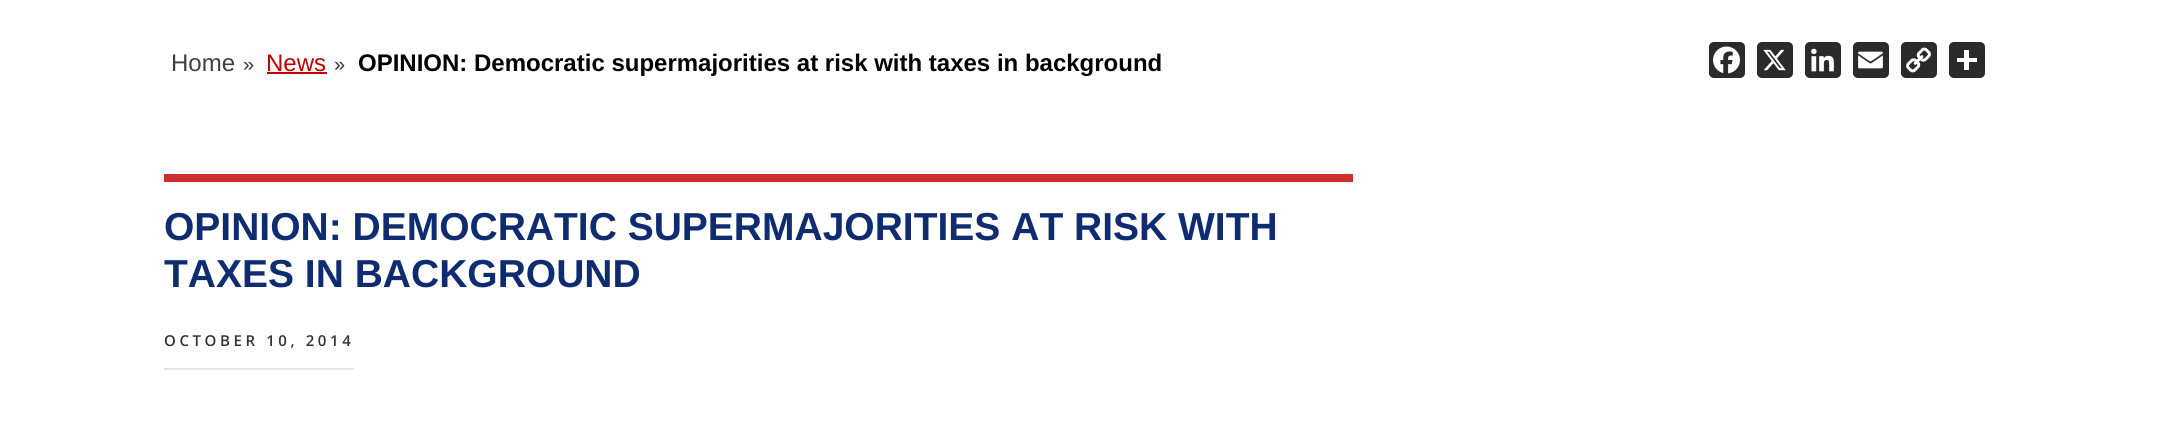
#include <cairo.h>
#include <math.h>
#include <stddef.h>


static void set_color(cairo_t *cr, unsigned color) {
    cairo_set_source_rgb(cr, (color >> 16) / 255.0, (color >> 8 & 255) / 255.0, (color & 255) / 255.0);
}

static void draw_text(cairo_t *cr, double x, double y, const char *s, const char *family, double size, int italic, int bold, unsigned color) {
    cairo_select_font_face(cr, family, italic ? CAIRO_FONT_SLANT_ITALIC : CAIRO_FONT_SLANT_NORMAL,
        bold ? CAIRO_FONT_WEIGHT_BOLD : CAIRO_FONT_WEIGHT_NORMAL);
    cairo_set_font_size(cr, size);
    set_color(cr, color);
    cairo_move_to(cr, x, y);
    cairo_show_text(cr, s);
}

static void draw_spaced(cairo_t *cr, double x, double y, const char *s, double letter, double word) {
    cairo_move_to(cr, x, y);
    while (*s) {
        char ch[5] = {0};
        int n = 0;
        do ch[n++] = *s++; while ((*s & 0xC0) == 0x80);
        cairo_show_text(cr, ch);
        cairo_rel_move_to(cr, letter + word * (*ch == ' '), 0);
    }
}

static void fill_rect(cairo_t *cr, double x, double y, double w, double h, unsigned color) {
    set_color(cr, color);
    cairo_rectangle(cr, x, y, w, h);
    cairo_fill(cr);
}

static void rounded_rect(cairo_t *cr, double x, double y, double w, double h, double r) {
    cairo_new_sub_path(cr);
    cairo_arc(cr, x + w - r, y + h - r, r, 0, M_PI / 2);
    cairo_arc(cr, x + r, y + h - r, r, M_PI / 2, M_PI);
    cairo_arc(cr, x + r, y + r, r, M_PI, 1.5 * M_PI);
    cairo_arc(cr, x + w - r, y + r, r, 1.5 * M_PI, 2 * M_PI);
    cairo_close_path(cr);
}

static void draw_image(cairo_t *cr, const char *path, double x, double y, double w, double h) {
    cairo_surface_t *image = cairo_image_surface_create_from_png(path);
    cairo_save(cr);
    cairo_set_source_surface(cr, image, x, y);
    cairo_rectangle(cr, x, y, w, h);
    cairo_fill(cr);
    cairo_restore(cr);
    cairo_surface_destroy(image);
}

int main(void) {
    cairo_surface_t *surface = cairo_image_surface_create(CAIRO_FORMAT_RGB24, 2157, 446);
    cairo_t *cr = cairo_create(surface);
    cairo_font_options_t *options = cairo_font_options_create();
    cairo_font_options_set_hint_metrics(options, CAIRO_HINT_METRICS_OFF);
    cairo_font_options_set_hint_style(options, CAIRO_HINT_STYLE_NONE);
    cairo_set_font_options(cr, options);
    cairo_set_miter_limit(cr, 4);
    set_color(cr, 0xFFFFFF);
    cairo_paint(cr);
    draw_text(cr, 171, 71, "Home", "Liberation Sans", 24, 0, 0, 0x404040);
    draw_text(cr, 243, 71, "»", "Liberation Sans", 20, 0, 0, 0x333333);
    draw_text(cr, 266, 71, "News", "Liberation Sans", 24, 0, 0, 0xC00000);
    fill_rect(cr, 267, 72, 60, 2, 0xC00000);
    draw_text(cr, 334, 71, "»", "Liberation Sans", 20, 0, 0, 0x333333);
    draw_text(cr, 358, 71, "OPINION: Democratic supermajorities at risk with taxes in background", "Liberation Sans", 24, 0, 1, 0x000000);
    set_color(cr, 0x2A2A2A);
    rounded_rect(cr, 1709, 42, 36, 36, 5);
    cairo_fill(cr);
    draw_image(cr, "assets/img1.png", 1713, 46, 27, 28);
    rounded_rect(cr, 1757, 42, 36, 36, 5);
    cairo_fill(cr);
    draw_image(cr, "assets/img2.png", 1763, 49, 23, 22);
    rounded_rect(cr, 1805, 42, 36, 36, 5);
    cairo_fill(cr);
    draw_image(cr, "assets/img3.png", 1811, 48, 23, 24);
    rounded_rect(cr, 1853, 42, 36, 36, 5);
    cairo_fill(cr);
    draw_image(cr, "assets/img4.png", 1858, 51, 25, 18);
    rounded_rect(cr, 1901, 42, 36, 36, 5);
    cairo_fill(cr);
    draw_image(cr, "assets/img5.png", 1906, 47, 25, 26);
    rounded_rect(cr, 1949, 42, 36, 36, 5);
    cairo_fill(cr);
    fill_rect(cr, 1964, 50, 5, 20, 0xFFFFFF);
    fill_rect(cr, 1957, 58, 20, 4, 0xFFFFFF);
    fill_rect(cr, 164, 174, 1189, 8, 0xCF2E2E);
    draw_text(cr, 164, 240, "OPINION: DEMOCRATIC SUPERMAJORITIES AT RISK WITH", "Liberation Sans", 39, 0, 1, 0x0F2C71);
    cairo_save(cr);
    cairo_rectangle(cr, 164, 182, 1189, 202);
    cairo_clip(cr);
    draw_text(cr, 164, 287, "TAXES IN BACKGROUND", "Liberation Sans", 39, 0, 1, 0x0F2C71);
    cairo_restore(cr);
    fill_rect(cr, 164, 368, 190, 2, 0xE5E5E5);
    cairo_select_font_face(cr, "Open Sans SemiBold", CAIRO_FONT_SLANT_NORMAL, CAIRO_FONT_WEIGHT_NORMAL);
    cairo_set_font_size(cr, 15);
    set_color(cr, 0x333333);
    draw_spaced(cr, 164, 346, "OCTOBER 10, 2014", 3.6, 0);
    cairo_surface_write_to_png(surface, "output.png");
    cairo_font_options_destroy(options);
    cairo_destroy(cr);
    cairo_surface_destroy(surface);
    return 0;
}
